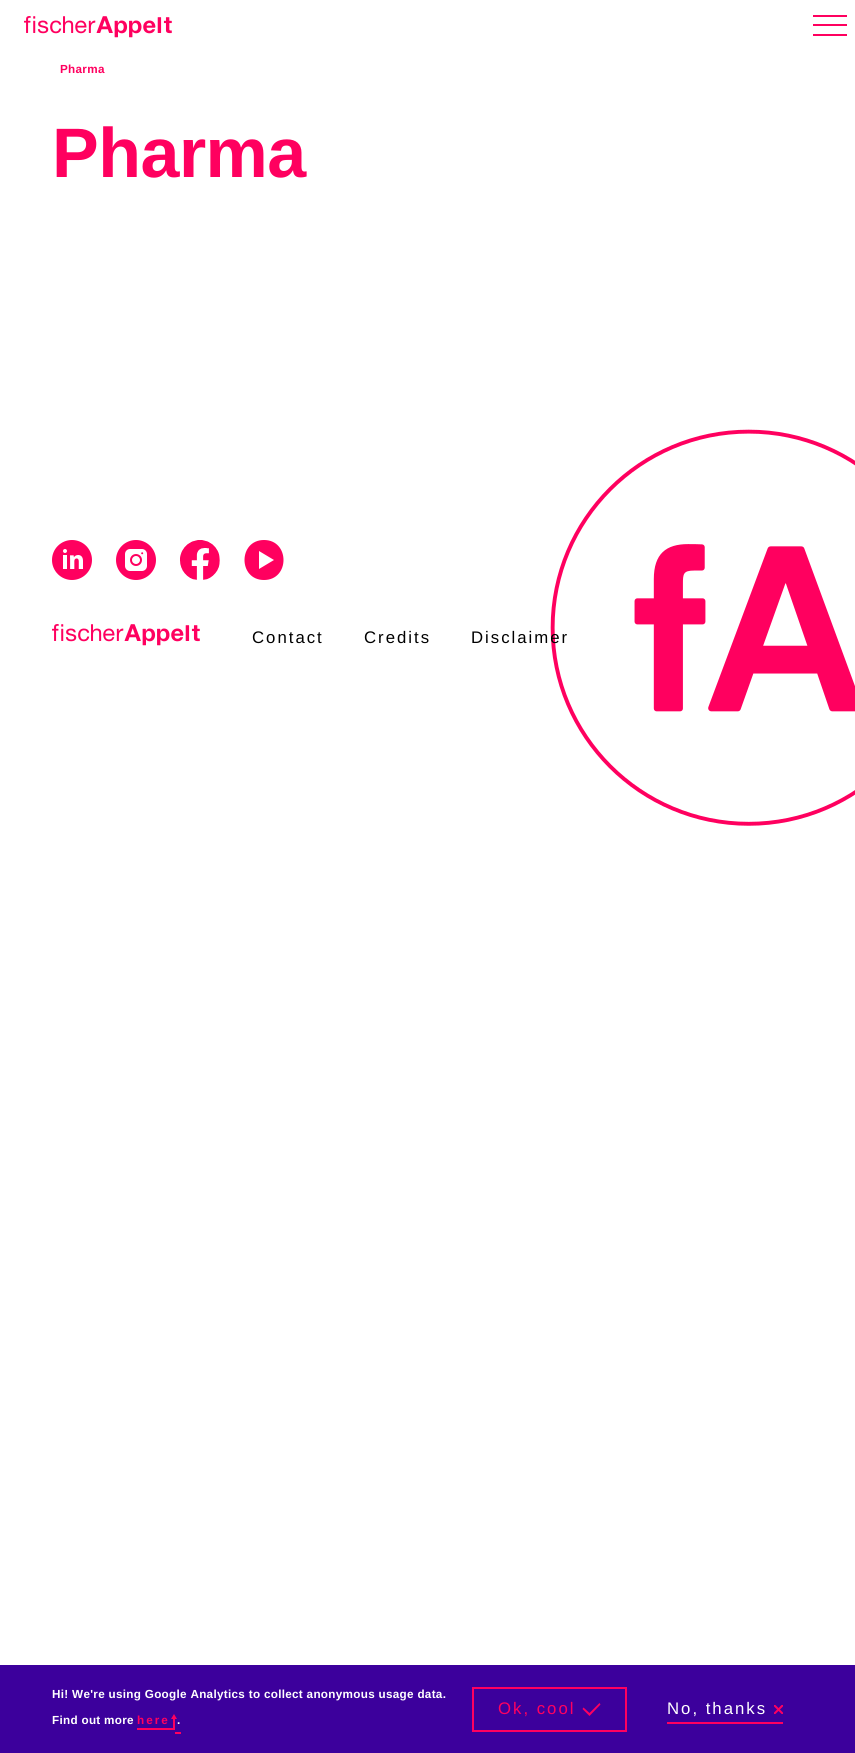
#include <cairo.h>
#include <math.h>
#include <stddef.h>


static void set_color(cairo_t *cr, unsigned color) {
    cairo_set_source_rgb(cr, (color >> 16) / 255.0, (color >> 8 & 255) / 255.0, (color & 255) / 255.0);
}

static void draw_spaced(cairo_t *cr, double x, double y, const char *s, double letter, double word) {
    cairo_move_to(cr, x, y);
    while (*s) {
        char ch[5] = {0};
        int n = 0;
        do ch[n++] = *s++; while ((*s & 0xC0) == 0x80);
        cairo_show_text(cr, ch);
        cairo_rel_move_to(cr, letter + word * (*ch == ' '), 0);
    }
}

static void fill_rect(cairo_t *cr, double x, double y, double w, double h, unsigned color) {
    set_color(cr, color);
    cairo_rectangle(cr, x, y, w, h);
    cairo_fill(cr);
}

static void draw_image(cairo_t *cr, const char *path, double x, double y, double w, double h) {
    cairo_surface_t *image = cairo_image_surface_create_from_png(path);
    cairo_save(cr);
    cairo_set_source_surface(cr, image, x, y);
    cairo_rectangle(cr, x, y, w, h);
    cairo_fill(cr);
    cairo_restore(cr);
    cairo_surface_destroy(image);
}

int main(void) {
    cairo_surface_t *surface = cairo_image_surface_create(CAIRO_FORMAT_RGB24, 855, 1753);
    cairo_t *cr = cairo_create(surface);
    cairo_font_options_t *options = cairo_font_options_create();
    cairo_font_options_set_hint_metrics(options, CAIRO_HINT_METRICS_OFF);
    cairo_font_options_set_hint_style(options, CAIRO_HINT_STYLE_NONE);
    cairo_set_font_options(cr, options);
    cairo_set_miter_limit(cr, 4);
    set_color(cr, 0xFFFFFF);
    cairo_paint(cr);
    draw_image(cr, "assets/img1.png", 24, 16, 148, 22);
    fill_rect(cr, 813, 15, 34, 2, 0xFF005F);
    fill_rect(cr, 813, 24, 34, 2, 0xFF005F);
    fill_rect(cr, 813, 34, 34, 2, 0xFF005F);
    cairo_select_font_face(cr, "Liberation Sans", CAIRO_FONT_SLANT_NORMAL, CAIRO_FONT_WEIGHT_BOLD);
    cairo_set_font_size(cr, 11.7);
    draw_spaced(cr, 60, 73, "Pharma", 0.3, 0);
    cairo_set_font_size(cr, 70);
    draw_spaced(cr, 52, 177, "Pharma", -0.5, 0);
    draw_image(cr, "assets/img2.png", 52, 540, 40, 40);
    draw_image(cr, "assets/img3.png", 116, 540, 40, 40);
    draw_image(cr, "assets/img4.png", 180, 540, 40, 40);
    cairo_set_fill_rule(cr, CAIRO_FILL_RULE_EVEN_ODD);
    cairo_new_path(cr);
    cairo_move_to(cr, 264, 580);
    cairo_curve_to(cr, 290, 580, 290, 540, 264, 540);
    cairo_curve_to(cr, 238, 540, 238, 580, 264, 580);
    cairo_close_path(cr);
    cairo_move_to(cr, 274, 560);
    cairo_line_to(cr, 259, 569);
    cairo_line_to(cr, 259, 551);
    cairo_close_path(cr);
    cairo_fill(cr);
    draw_image(cr, "assets/img5.png", 550, 429, 305, 397);
    draw_image(cr, "assets/img1.png", 52, 624, 148, 22);
    cairo_select_font_face(cr, "Liberation Sans", CAIRO_FONT_SLANT_NORMAL, CAIRO_FONT_WEIGHT_NORMAL);
    cairo_set_font_size(cr, 16.75);
    set_color(cr, 0x000000);
    draw_spaced(cr, 252, 643, "Contact", 2, 0);
    draw_spaced(cr, 364, 643, "Credits", 2, 0);
    draw_spaced(cr, 471, 643, "Disclaimer", 2, 0);
    fill_rect(cr, 0, 1665, 855, 88, 0x3C009C);
    cairo_select_font_face(cr, "Liberation Sans", CAIRO_FONT_SLANT_NORMAL, CAIRO_FONT_WEIGHT_BOLD);
    cairo_set_font_size(cr, 11.7);
    set_color(cr, 0xFFFFFF);
    draw_spaced(cr, 52, 1698, "Hi! We're using Google Analytics to collect anonymous usage data.", 0.3, 0);
    draw_spaced(cr, 52, 1724, "Find out more", 0.3, 0);
    fill_rect(cr, 137, 1728, 38, 2, 0xFF005F);
    fill_rect(cr, 175, 1732, 6, 2, 0xFF005F);
    draw_spaced(cr, 137, 1724, "here", 2, 0);
    cairo_new_path(cr);
    cairo_move_to(cr, 174, 1714);
    cairo_line_to(cr, 177, 1719);
    cairo_line_to(cr, 171, 1719);
    cairo_close_path(cr);
    cairo_fill(cr);
    fill_rect(cr, 173, 1718, 2, 12, 0xFF005F);
    set_color(cr, 0xFFFFFF);
    draw_spaced(cr, 177, 1724, ".", 0.3, 0);
    cairo_rectangle(cr, 473, 1688, 153, 43);
    set_color(cr, 0xFF005F);
    cairo_stroke(cr);
    cairo_select_font_face(cr, "Liberation Sans", CAIRO_FONT_SLANT_NORMAL, CAIRO_FONT_WEIGHT_NORMAL);
    cairo_set_font_size(cr, 16.75);
    draw_spaced(cr, 498, 1714, "Ok, cool", 2, 0);
    cairo_set_fill_rule(cr, CAIRO_FILL_RULE_WINDING);
    cairo_new_path(cr);
    cairo_move_to(cr, 589.5, 1713);
    cairo_line_to(cr, 599.5, 1703);
    cairo_line_to(cr, 600.5, 1704.5);
    cairo_line_to(cr, 589.5, 1716);
    cairo_line_to(cr, 582.5, 1709);
    cairo_line_to(cr, 583.5, 1707.5);
    cairo_close_path(cr);
    cairo_fill(cr);
    fill_rect(cr, 667, 1722, 116, 2, 0xFF005F);
    set_color(cr, 0xFFFFFF);
    draw_spaced(cr, 667, 1714, "No, thanks", 2, 0);
    draw_image(cr, "assets/img6.png", 774, 1705, 9, 9);
    cairo_surface_write_to_png(surface, "output.png");
    cairo_font_options_destroy(options);
    cairo_destroy(cr);
    cairo_surface_destroy(surface);
    return 0;
}
